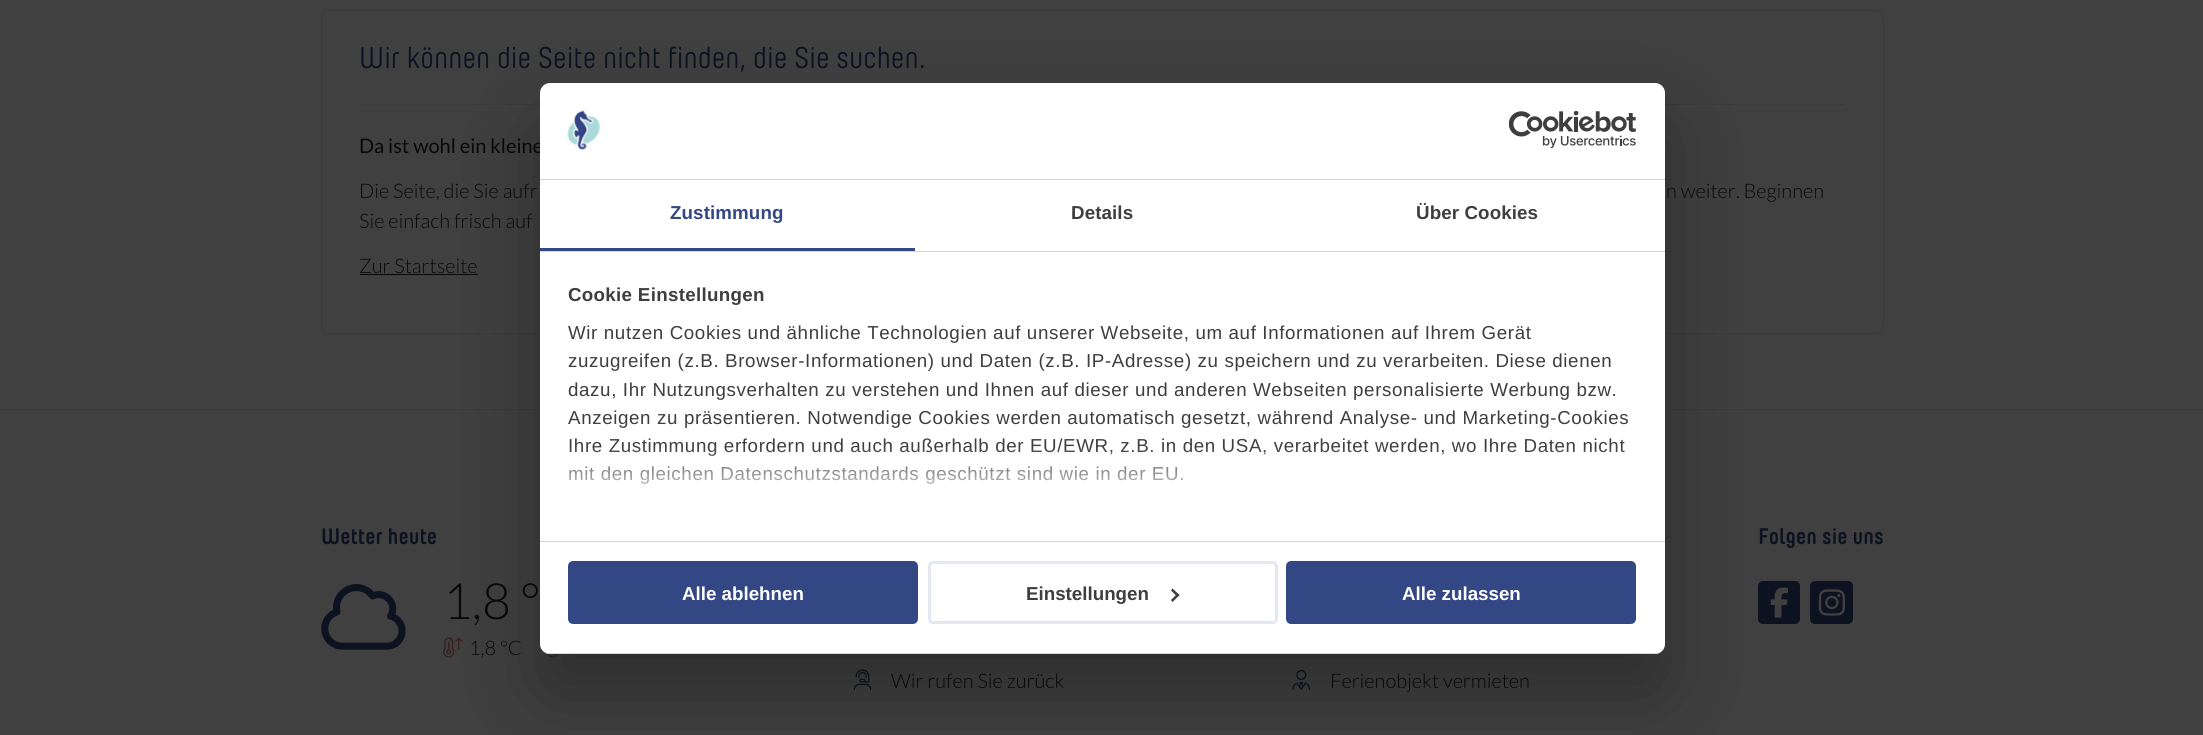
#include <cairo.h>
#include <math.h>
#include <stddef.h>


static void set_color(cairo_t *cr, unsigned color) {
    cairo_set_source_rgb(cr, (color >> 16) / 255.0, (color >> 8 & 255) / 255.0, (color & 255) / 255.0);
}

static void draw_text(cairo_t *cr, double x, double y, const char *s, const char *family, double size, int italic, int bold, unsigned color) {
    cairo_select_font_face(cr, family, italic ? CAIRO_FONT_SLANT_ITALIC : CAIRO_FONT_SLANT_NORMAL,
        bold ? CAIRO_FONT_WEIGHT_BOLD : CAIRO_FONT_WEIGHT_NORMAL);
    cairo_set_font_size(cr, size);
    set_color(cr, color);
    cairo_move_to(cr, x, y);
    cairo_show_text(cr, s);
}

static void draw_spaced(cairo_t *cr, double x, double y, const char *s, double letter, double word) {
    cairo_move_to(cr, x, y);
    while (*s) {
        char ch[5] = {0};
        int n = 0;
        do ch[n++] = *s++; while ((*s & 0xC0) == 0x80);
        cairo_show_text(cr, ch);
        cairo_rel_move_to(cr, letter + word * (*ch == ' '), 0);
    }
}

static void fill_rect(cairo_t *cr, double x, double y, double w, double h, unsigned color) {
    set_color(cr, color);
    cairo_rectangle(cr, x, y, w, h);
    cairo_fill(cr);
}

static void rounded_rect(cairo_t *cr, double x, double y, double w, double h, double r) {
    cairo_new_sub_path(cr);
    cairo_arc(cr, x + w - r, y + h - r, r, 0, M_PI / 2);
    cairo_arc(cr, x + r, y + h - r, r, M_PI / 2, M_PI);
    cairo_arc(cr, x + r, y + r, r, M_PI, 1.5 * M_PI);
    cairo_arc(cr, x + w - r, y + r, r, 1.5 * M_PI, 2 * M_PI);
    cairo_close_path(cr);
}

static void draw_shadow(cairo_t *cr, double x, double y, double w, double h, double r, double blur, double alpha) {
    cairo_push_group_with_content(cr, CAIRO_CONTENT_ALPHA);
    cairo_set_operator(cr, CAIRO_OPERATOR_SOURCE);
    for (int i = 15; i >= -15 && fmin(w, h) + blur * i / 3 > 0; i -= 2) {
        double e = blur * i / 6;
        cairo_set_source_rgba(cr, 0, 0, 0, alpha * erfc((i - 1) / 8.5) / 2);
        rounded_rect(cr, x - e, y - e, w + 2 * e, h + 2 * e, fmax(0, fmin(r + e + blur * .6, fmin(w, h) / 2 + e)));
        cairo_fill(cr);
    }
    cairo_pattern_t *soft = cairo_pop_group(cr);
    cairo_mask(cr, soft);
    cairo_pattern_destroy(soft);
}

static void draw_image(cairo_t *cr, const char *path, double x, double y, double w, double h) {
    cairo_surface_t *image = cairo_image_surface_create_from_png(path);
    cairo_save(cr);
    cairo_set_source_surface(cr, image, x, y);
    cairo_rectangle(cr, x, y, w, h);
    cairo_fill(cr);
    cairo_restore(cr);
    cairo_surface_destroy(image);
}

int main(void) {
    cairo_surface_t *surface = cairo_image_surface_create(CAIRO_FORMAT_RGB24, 2203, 735);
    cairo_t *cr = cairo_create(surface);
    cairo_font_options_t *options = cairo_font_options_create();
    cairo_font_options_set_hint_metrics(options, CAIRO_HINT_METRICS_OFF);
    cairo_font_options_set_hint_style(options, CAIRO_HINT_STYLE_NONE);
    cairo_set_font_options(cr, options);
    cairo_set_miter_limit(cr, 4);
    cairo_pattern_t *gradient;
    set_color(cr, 0x404040);
    cairo_paint(cr);
    rounded_rect(cr, 321.5, 10.5, 1562, 323, 7.5);
    set_color(cr, 0x3B3B3B);
    cairo_set_line_width(cr, 1);
    cairo_stroke(cr);
    fill_rect(cr, 360, 104, 1485, 1, 0x3B3B3B);
    draw_text(cr, 359, 68, "Wir können die Seite nicht finden, die Sie suchen.", "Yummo", 30, 0, 0, 0x0D1221);
    draw_text(cr, 359, 153, "Da ist wohl ein kleine", "Lato", 20, 0, 0, 0x080808);
    draw_text(cr, 359, 198, "Die Seite, die Sie aufr", "Lato Light", 20, 0, 0, 0x080808);
    draw_text(cr, 1666, 198, "n weiter. Beginnen", "Lato Light", 20, 0, 0, 0x080808);
    draw_text(cr, 359, 228, "Sie einfach frisch auf", "Lato Light", 20, 0, 0, 0x080808);
    draw_text(cr, 359, 273, "Zur Startseite", "Lato Light", 20, 0, 0, 0x080808);
    fill_rect(cr, 360, 274, 118, 1, 0x080808);
    fill_rect(cr, 0, 409, 2203, 1, 0x3B3B3B);
    draw_text(cr, 321, 544, "Wetter heute", "Yummo", 22.5, 0, 1, 0x0D1221);
    draw_image(cr, "assets/img1.png", 321, 584, 85, 66);
    draw_text(cr, 443, 619, "1,8 °", "Lato Light", 50, 0, 0, 0x080808);
    draw_image(cr, "assets/img2.png", 443, 637, 20, 21);
    draw_text(cr, 469, 655, "1,8 °C", "Lato Light", 20, 0, 0, 0x080808);
    draw_image(cr, "assets/img3.png", 547, 653, 11, 5);
    draw_text(cr, 1758, 544, "Folgen sie uns", "Yummo", 22.5, 0, 1, 0x0D1221);
    rounded_rect(cr, 1758, 581, 42, 43, 5);
    cairo_fill(cr);
    draw_image(cr, "assets/img4.png", 1770, 587, 18, 31);
    rounded_rect(cr, 1810, 581, 43, 43, 5);
    cairo_fill(cr);
    draw_image(cr, "assets/img5.png", 1818, 589, 28, 27);
    draw_image(cr, "assets/img6.png", 853, 669, 19, 21);
    draw_text(cr, 891, 688, "Wir rufen Sie zurück", "Lato Light", 20, 0, 0, 0x080808);
    draw_image(cr, "assets/img7.png", 1292, 670, 18, 20);
    draw_text(cr, 1330, 688, "Ferienobjekt vermieten", "Lato Light", 20, 0, 0, 0x080808);
    set_color(cr, 0x000000);
    draw_shadow(cr, 540, 123, 1125, 571, 10, 42.5, 0.3);
    set_color(cr, 0xFFFFFF);
    rounded_rect(cr, 540, 83, 1125, 571, 10);
    cairo_fill(cr);
    fill_rect(cr, 540, 179, 1125, 1, 0xD6D6D6);
    draw_image(cr, "assets/img8.png", 567, 110, 34, 40);
    draw_image(cr, "assets/img9.png", 1509, 111, 127, 38);
    fill_rect(cr, 540, 251, 1125, 1, 0xD6D6D6);
    fill_rect(cr, 540, 248, 375, 3, 0x344785);
    cairo_select_font_face(cr, "Liberation Sans", CAIRO_FONT_SLANT_NORMAL, CAIRO_FONT_WEIGHT_BOLD);
    cairo_set_font_size(cr, 18.75);
    draw_spaced(cr, 670, 219, "Zustimmung", 0.1, 0);
    set_color(cr, 0x3E3E3E);
    draw_spaced(cr, 1071, 219, "Details", 0.1, 0);
    draw_spaced(cr, 1416, 219, "Über Cookies", 0.1, 0);
    fill_rect(cr, 540, 541, 1125, 1, 0xD6D6D6);
    set_color(cr, 0x3E3E3E);
    draw_spaced(cr, 568, 301, "Cookie Einstellungen", 0.3, 0);
    cairo_select_font_face(cr, "Liberation Sans", CAIRO_FONT_SLANT_NORMAL, CAIRO_FONT_WEIGHT_NORMAL);
    draw_spaced(cr, 568, 339, "Wir nutzen Cookies und ähnliche Technologien auf unserer Webseite, um auf Informationen auf Ihrem Gerät", 0.62, 0);
    draw_spaced(cr, 568, 367, "zuzugreifen (z.B. Browser-Informationen) und Daten (z.B. IP-Adresse) zu speichern und zu verarbeiten. Diese dienen", 0.62, 0);
    draw_spaced(cr, 568, 396, "dazu, Ihr Nutzungsverhalten zu verstehen und Ihnen auf dieser und anderen Webseiten personalisierte Werbung bzw.", 0.62, 0);
    draw_spaced(cr, 568, 424, "Anzeigen zu präsentieren. Notwendige Cookies werden automatisch gesetzt, während Analyse- und Marketing-Cookies", 0.62, 0);
    draw_spaced(cr, 568, 452, "Ihre Zustimmung erfordern und auch außerhalb der EU/EWR, z.B. in den USA, verarbeitet werden, wo Ihre Daten nicht", 0.62, 0);
    draw_spaced(cr, 568, 480, "mit den gleichen Datenschutzstandards geschützt sind wie in der EU.", 0.62, 0);
    gradient = cairo_pattern_create_linear(1089, 541, 1089, 447);
    cairo_pattern_add_color_stop_rgba(gradient, 0, 1, 1, 1, 1);
    cairo_pattern_add_color_stop_rgba(gradient, 0.5, 1, 1, 1, 0.8);
    cairo_pattern_add_color_stop_rgba(gradient, 1, 1, 1, 1, 0);
    cairo_set_source(cr, gradient);
    cairo_pattern_destroy(gradient);
    cairo_rectangle(cr, 568, 448, 1057, 36);
    cairo_fill(cr);
    cairo_save(cr);
    rounded_rect(cr, 540, 83, 1125, 571, 10);
    cairo_clip(cr);
    fill_rect(cr, 540, 653, 1125, 1, 0xD6D6D6);
    cairo_restore(cr);
    set_color(cr, 0x344785);
    rounded_rect(cr, 569.5, 562.5, 347, 60, 3.5);
    cairo_fill_preserve(cr);
    cairo_set_line_width(cr, 3);
    cairo_stroke(cr);
    draw_text(cr, 682, 600, "Alle ablehnen", "Liberation Sans", 18.75, 0, 1, 0xFFFFFF);
    rounded_rect(cr, 929.5, 562.5, 347, 60, 3.5);
    set_color(cr, 0xE5E7F2);
    cairo_stroke(cr);
    draw_text(cr, 1026, 600, "Einstellungen", "Liberation Sans", 18.75, 0, 1, 0x3E3E3E);
    cairo_new_path(cr);
    cairo_move_to(cr, 1172.5, 588.5);
    cairo_line_to(cr, 1179.5, 595);
    cairo_line_to(cr, 1177.5, 597);
    cairo_line_to(cr, 1171, 590.5);
    cairo_close_path(cr);
    cairo_fill(cr);
    cairo_new_path(cr);
    cairo_move_to(cr, 1177.5, 593.5);
    cairo_line_to(cr, 1179.5, 595);
    cairo_line_to(cr, 1172.5, 602);
    cairo_line_to(cr, 1171, 600);
    cairo_close_path(cr);
    cairo_fill(cr);
    set_color(cr, 0x344785);
    rounded_rect(cr, 1287.5, 562.5, 347, 60, 3.5);
    cairo_fill_preserve(cr);
    cairo_stroke(cr);
    draw_text(cr, 1402, 600, "Alle zulassen", "Liberation Sans", 18.75, 0, 1, 0xFFFFFF);
    cairo_surface_write_to_png(surface, "output.png");
    cairo_font_options_destroy(options);
    cairo_destroy(cr);
    cairo_surface_destroy(surface);
    return 0;
}
